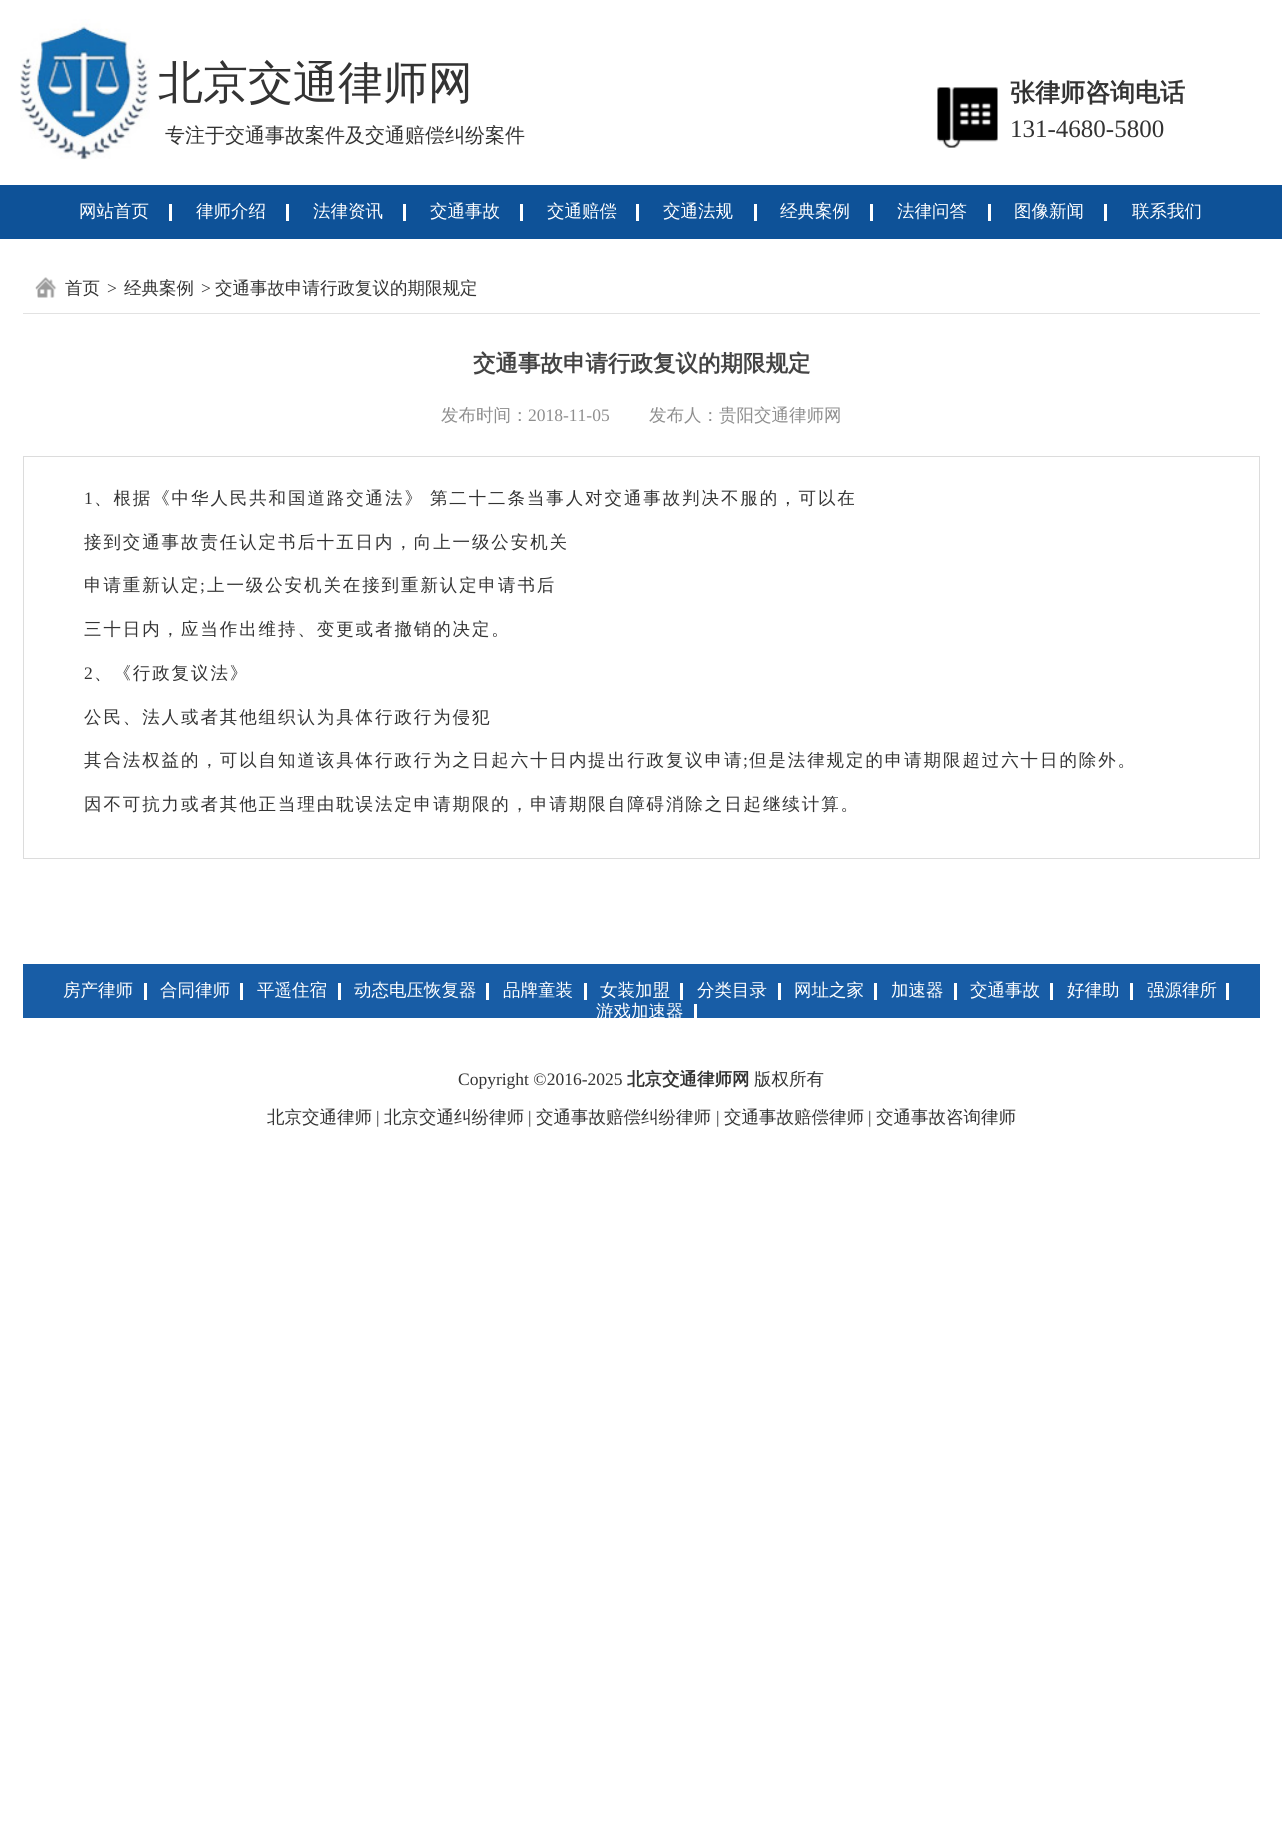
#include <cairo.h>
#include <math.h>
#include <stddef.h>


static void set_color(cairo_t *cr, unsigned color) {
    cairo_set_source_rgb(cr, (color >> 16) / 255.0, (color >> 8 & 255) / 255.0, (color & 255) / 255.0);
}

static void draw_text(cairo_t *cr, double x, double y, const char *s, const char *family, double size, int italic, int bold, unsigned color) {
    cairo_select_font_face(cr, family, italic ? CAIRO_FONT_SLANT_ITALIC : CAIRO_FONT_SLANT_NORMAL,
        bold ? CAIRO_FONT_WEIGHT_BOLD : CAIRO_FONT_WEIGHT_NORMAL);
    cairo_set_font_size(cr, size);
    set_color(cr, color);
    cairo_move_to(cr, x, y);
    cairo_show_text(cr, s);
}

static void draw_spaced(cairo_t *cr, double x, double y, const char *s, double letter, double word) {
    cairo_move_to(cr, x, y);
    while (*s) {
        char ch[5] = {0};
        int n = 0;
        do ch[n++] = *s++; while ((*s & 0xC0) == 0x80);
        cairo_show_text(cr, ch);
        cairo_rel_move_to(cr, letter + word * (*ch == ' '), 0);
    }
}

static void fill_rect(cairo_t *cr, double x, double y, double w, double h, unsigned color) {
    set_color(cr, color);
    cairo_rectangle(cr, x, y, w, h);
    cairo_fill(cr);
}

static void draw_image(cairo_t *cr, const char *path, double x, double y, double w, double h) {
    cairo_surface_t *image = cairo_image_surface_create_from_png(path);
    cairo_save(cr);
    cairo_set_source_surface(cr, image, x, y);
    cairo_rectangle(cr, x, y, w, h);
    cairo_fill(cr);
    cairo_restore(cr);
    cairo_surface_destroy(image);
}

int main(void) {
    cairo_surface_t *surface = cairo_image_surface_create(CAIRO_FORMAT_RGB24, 1282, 1837);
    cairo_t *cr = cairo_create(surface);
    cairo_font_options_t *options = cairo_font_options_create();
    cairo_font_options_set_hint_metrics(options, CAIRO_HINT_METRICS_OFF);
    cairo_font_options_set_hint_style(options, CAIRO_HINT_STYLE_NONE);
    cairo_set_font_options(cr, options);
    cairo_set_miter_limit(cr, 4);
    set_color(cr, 0xFFFFFF);
    cairo_paint(cr);
    draw_image(cr, "assets/img1.png", 20, 19, 130, 141);
    draw_text(cr, 158, 98, "北京交通律师网", "WenQuanYi Zen Hei Medium", 45, 0, 0, 0x333333);
    draw_text(cr, 165, 142, "专注于交通事故案件及交通赔偿纠纷案件", "WenQuanYi Zen Hei Medium", 20, 0, 0, 0x333333);
    draw_image(cr, "assets/img2.png", 937, 87, 61, 61);
    draw_text(cr, 1010, 101, "张律师咨询电话", "WenQuanYi Zen Hei", 25, 0, 1, 0x333333);
    draw_text(cr, 1010, 137, "131-4680-5800", "Liberation Serif", 25, 0, 0, 0x333333);
    fill_rect(cr, 0, 185, 1282, 54, 0x0E5298);
    fill_rect(cr, 169, 204, 3, 17, 0xFFFFFF);
    draw_text(cr, 79, 217, "网站首页", "WenQuanYi Zen Hei Medium", 17.5, 0, 0, 0xFFFFFF);
    fill_rect(cr, 286, 204, 3, 17, 0xFFFFFF);
    draw_text(cr, 196, 217, "律师介绍", "WenQuanYi Zen Hei Medium", 17.5, 0, 0, 0xFFFFFF);
    fill_rect(cr, 403, 204, 3, 17, 0xFFFFFF);
    draw_text(cr, 313, 217, "法律资讯", "WenQuanYi Zen Hei Medium", 17.5, 0, 0, 0xFFFFFF);
    fill_rect(cr, 520, 204, 3, 17, 0xFFFFFF);
    draw_text(cr, 430, 217, "交通事故", "WenQuanYi Zen Hei Medium", 17.5, 0, 0, 0xFFFFFF);
    fill_rect(cr, 636, 204, 3, 17, 0xFFFFFF);
    draw_text(cr, 547, 217, "交通赔偿", "WenQuanYi Zen Hei Medium", 17.5, 0, 0, 0xFFFFFF);
    fill_rect(cr, 754, 204, 3, 17, 0xFFFFFF);
    draw_text(cr, 663, 217, "交通法规", "WenQuanYi Zen Hei Medium", 17.5, 0, 0, 0xFFFFFF);
    fill_rect(cr, 870, 204, 3, 17, 0xFFFFFF);
    draw_text(cr, 780, 217, "经典案例", "WenQuanYi Zen Hei Medium", 17.5, 0, 0, 0xFFFFFF);
    fill_rect(cr, 988, 204, 3, 17, 0xFFFFFF);
    draw_text(cr, 897, 217, "法律问答", "WenQuanYi Zen Hei Medium", 17.5, 0, 0, 0xFFFFFF);
    fill_rect(cr, 1104, 204, 3, 17, 0xFFFFFF);
    draw_text(cr, 1014, 217, "图像新闻", "WenQuanYi Zen Hei Medium", 17.5, 0, 0, 0xFFFFFF);
    draw_text(cr, 1132, 217, "联系我们", "WenQuanYi Zen Hei Medium", 17.5, 0, 0, 0xFFFFFF);
    fill_rect(cr, 23, 313, 1237, 1, 0xE2E2E2);
    draw_image(cr, "assets/img3.png", 35, 277, 22, 21);
    draw_text(cr, 65, 294, "首页", "WenQuanYi Zen Hei Medium", 17.5, 0, 0, 0x333333);
    draw_text(cr, 107, 294, ">", "Liberation Serif", 17.5, 0, 0, 0x333333);
    draw_text(cr, 124, 294, "经典案例", "WenQuanYi Zen Hei Medium", 17.5, 0, 0, 0x333333);
    draw_text(cr, 201, 294, ">", "Liberation Serif", 17.5, 0, 0, 0x333333);
    draw_text(cr, 215, 294, "交通事故申请行政复议的期限规定", "WenQuanYi Zen Hei Medium", 17.5, 0, 0, 0x333333);
    draw_text(cr, 473, 371, "交通事故申请行政复议的期限规定", "WenQuanYi Zen Hei", 22.5, 0, 1, 0x444444);
    draw_text(cr, 441, 421, "发布时间：", "WenQuanYi Zen Hei Medium", 17.5, 0, 0, 0x8E8E8E);
    draw_text(cr, 528, 421, "2018-11-05", "Liberation Serif", 17.5, 0, 0, 0x8E8E8E);
    draw_text(cr, 649, 421, "发布人：贵阳交通律师网", "WenQuanYi Zen Hei Medium", 17.5, 0, 0, 0x8E8E8E);
    cairo_rectangle(cr, 23.5, 456.5, 1236, 402);
    set_color(cr, 0xDCDCDC);
    cairo_set_line_width(cr, 1);
    cairo_stroke(cr);
    cairo_select_font_face(cr, "Liberation Serif", CAIRO_FONT_SLANT_NORMAL, CAIRO_FONT_WEIGHT_NORMAL);
    set_color(cr, 0x333333);
    draw_spaced(cr, 84, 504, "1", 1.9, 0);
    cairo_select_font_face(cr, "WenQuanYi Zen Hei Medium", CAIRO_FONT_SLANT_NORMAL, CAIRO_FONT_WEIGHT_NORMAL);
    draw_spaced(cr, 94, 504, "、根据《中华人民共和国道路交通法》 第二十二条当事人对交通事故判决不服的，可以在", 1.9, -1);
    draw_spaced(cr, 84, 548, "接到交通事故责任认定书后十五日内，向上一级公安机关", 1.9, 0);
    draw_spaced(cr, 84, 591, "申请重新认定", 1.9, 0);
    cairo_select_font_face(cr, "Liberation Serif", CAIRO_FONT_SLANT_NORMAL, CAIRO_FONT_WEIGHT_NORMAL);
    draw_spaced(cr, 200, 591, ";", 1.9, 0);
    cairo_select_font_face(cr, "WenQuanYi Zen Hei Medium", CAIRO_FONT_SLANT_NORMAL, CAIRO_FONT_WEIGHT_NORMAL);
    draw_spaced(cr, 207, 591, "上一级公安机关在接到重新认定申请书后", 1.9, 0);
    draw_spaced(cr, 84, 635, "三十日内，应当作出维持、变更或者撤销的决定。", 1.9, 0);
    cairo_select_font_face(cr, "Liberation Serif", CAIRO_FONT_SLANT_NORMAL, CAIRO_FONT_WEIGHT_NORMAL);
    draw_spaced(cr, 84, 679, "2", 1.9, 0);
    cairo_select_font_face(cr, "WenQuanYi Zen Hei Medium", CAIRO_FONT_SLANT_NORMAL, CAIRO_FONT_WEIGHT_NORMAL);
    draw_spaced(cr, 94, 679, "、《行政复议法》", 1.9, 0);
    draw_spaced(cr, 84, 723, "公民、法人或者其他组织认为具体行政行为侵犯", 1.9, 0);
    draw_spaced(cr, 84, 766, "其合法权益的，可以自知道该具体行政行为之日起六十日内提出行政复议申请", 1.9, 0);
    cairo_select_font_face(cr, "Liberation Serif", CAIRO_FONT_SLANT_NORMAL, CAIRO_FONT_WEIGHT_NORMAL);
    draw_spaced(cr, 743, 766, ";", 1.9, 0);
    cairo_select_font_face(cr, "WenQuanYi Zen Hei Medium", CAIRO_FONT_SLANT_NORMAL, CAIRO_FONT_WEIGHT_NORMAL);
    draw_spaced(cr, 749, 766, "但是法律规定的申请期限超过六十日的除外。", 1.9, 0);
    draw_spaced(cr, 84, 810, "因不可抗力或者其他正当理由耽误法定申请期限的，申请期限自障碍消除之日起继续计算。", 1.9, 0);
    fill_rect(cr, 23, 964, 1237, 54, 0x185DA6);
    fill_rect(cr, 144, 983, 3, 17, 0xFFFFFF);
    draw_text(cr, 63, 996, "房产律师", "WenQuanYi Zen Hei Medium", 17.5, 0, 0, 0xFFFFFF);
    fill_rect(cr, 240, 983, 3, 17, 0xFFFFFF);
    draw_text(cr, 160, 996, "合同律师", "WenQuanYi Zen Hei Medium", 17.5, 0, 0, 0xFFFFFF);
    fill_rect(cr, 338, 983, 3, 17, 0xFFFFFF);
    draw_text(cr, 257, 996, "平遥住宿", "WenQuanYi Zen Hei Medium", 17.5, 0, 0, 0xFFFFFF);
    fill_rect(cr, 486, 983, 3, 17, 0xFFFFFF);
    draw_text(cr, 354, 996, "动态电压恢复器", "WenQuanYi Zen Hei Medium", 17.5, 0, 0, 0xFFFFFF);
    fill_rect(cr, 584, 983, 3, 17, 0xFFFFFF);
    draw_text(cr, 503, 996, "品牌童装", "WenQuanYi Zen Hei Medium", 17.5, 0, 0, 0xFFFFFF);
    fill_rect(cr, 680, 983, 3, 17, 0xFFFFFF);
    draw_text(cr, 600, 996, "女装加盟", "WenQuanYi Zen Hei Medium", 17.5, 0, 0, 0xFFFFFF);
    fill_rect(cr, 778, 983, 3, 17, 0xFFFFFF);
    draw_text(cr, 697, 996, "分类目录", "WenQuanYi Zen Hei Medium", 17.5, 0, 0, 0xFFFFFF);
    fill_rect(cr, 874, 983, 3, 17, 0xFFFFFF);
    draw_text(cr, 794, 996, "网址之家", "WenQuanYi Zen Hei Medium", 17.5, 0, 0, 0xFFFFFF);
    fill_rect(cr, 954, 983, 3, 17, 0xFFFFFF);
    draw_text(cr, 891, 996, "加速器", "WenQuanYi Zen Hei Medium", 17.5, 0, 0, 0xFFFFFF);
    fill_rect(cr, 1050, 983, 3, 17, 0xFFFFFF);
    draw_text(cr, 970, 996, "交通事故", "WenQuanYi Zen Hei Medium", 17.5, 0, 0, 0xFFFFFF);
    fill_rect(cr, 1130, 983, 3, 17, 0xFFFFFF);
    draw_text(cr, 1067, 996, "好律助", "WenQuanYi Zen Hei Medium", 17.5, 0, 0, 0xFFFFFF);
    fill_rect(cr, 1226, 983, 3, 17, 0xFFFFFF);
    draw_text(cr, 1147, 996, "强源律所", "WenQuanYi Zen Hei Medium", 17.5, 0, 0, 0xFFFFFF);
    fill_rect(cr, 694, 1004, 3, 17, 0xFFFFFF);
    draw_text(cr, 596, 1017, "游戏加速器", "WenQuanYi Zen Hei Medium", 17.5, 0, 0, 0xFFFFFF);
    draw_text(cr, 458, 1085, "Copyright ©2016-2025", "Liberation Serif", 17.5, 0, 0, 0x333333);
    draw_text(cr, 627, 1085, "北京交通律师网", "WenQuanYi Zen Hei", 17.5, 0, 1, 0x333333);
    draw_text(cr, 754, 1085, "版权所有", "WenQuanYi Zen Hei Medium", 17.5, 0, 0, 0x333333);
    draw_text(cr, 267, 1123, "北京交通律师", "WenQuanYi Zen Hei Medium", 17.5, 0, 0, 0x333333);
    draw_text(cr, 376, 1123, "|", "Liberation Serif", 17.5, 0, 0, 0x333333);
    draw_text(cr, 384, 1123, "北京交通纠纷律师", "WenQuanYi Zen Hei Medium", 17.5, 0, 0, 0x333333);
    draw_text(cr, 528, 1123, "|", "Liberation Serif", 17.5, 0, 0, 0x333333);
    draw_text(cr, 536, 1123, "交通事故赔偿纠纷律师", "WenQuanYi Zen Hei Medium", 17.5, 0, 0, 0x333333);
    draw_text(cr, 716, 1123, "|", "Liberation Serif", 17.5, 0, 0, 0x333333);
    draw_text(cr, 724, 1123, "交通事故赔偿律师", "WenQuanYi Zen Hei Medium", 17.5, 0, 0, 0x333333);
    draw_text(cr, 868, 1123, "|", "Liberation Serif", 17.5, 0, 0, 0x333333);
    draw_text(cr, 876, 1123, "交通事故咨询律师", "WenQuanYi Zen Hei Medium", 17.5, 0, 0, 0x333333);
    cairo_surface_write_to_png(surface, "output.png");
    cairo_font_options_destroy(options);
    cairo_destroy(cr);
    cairo_surface_destroy(surface);
    return 0;
}
